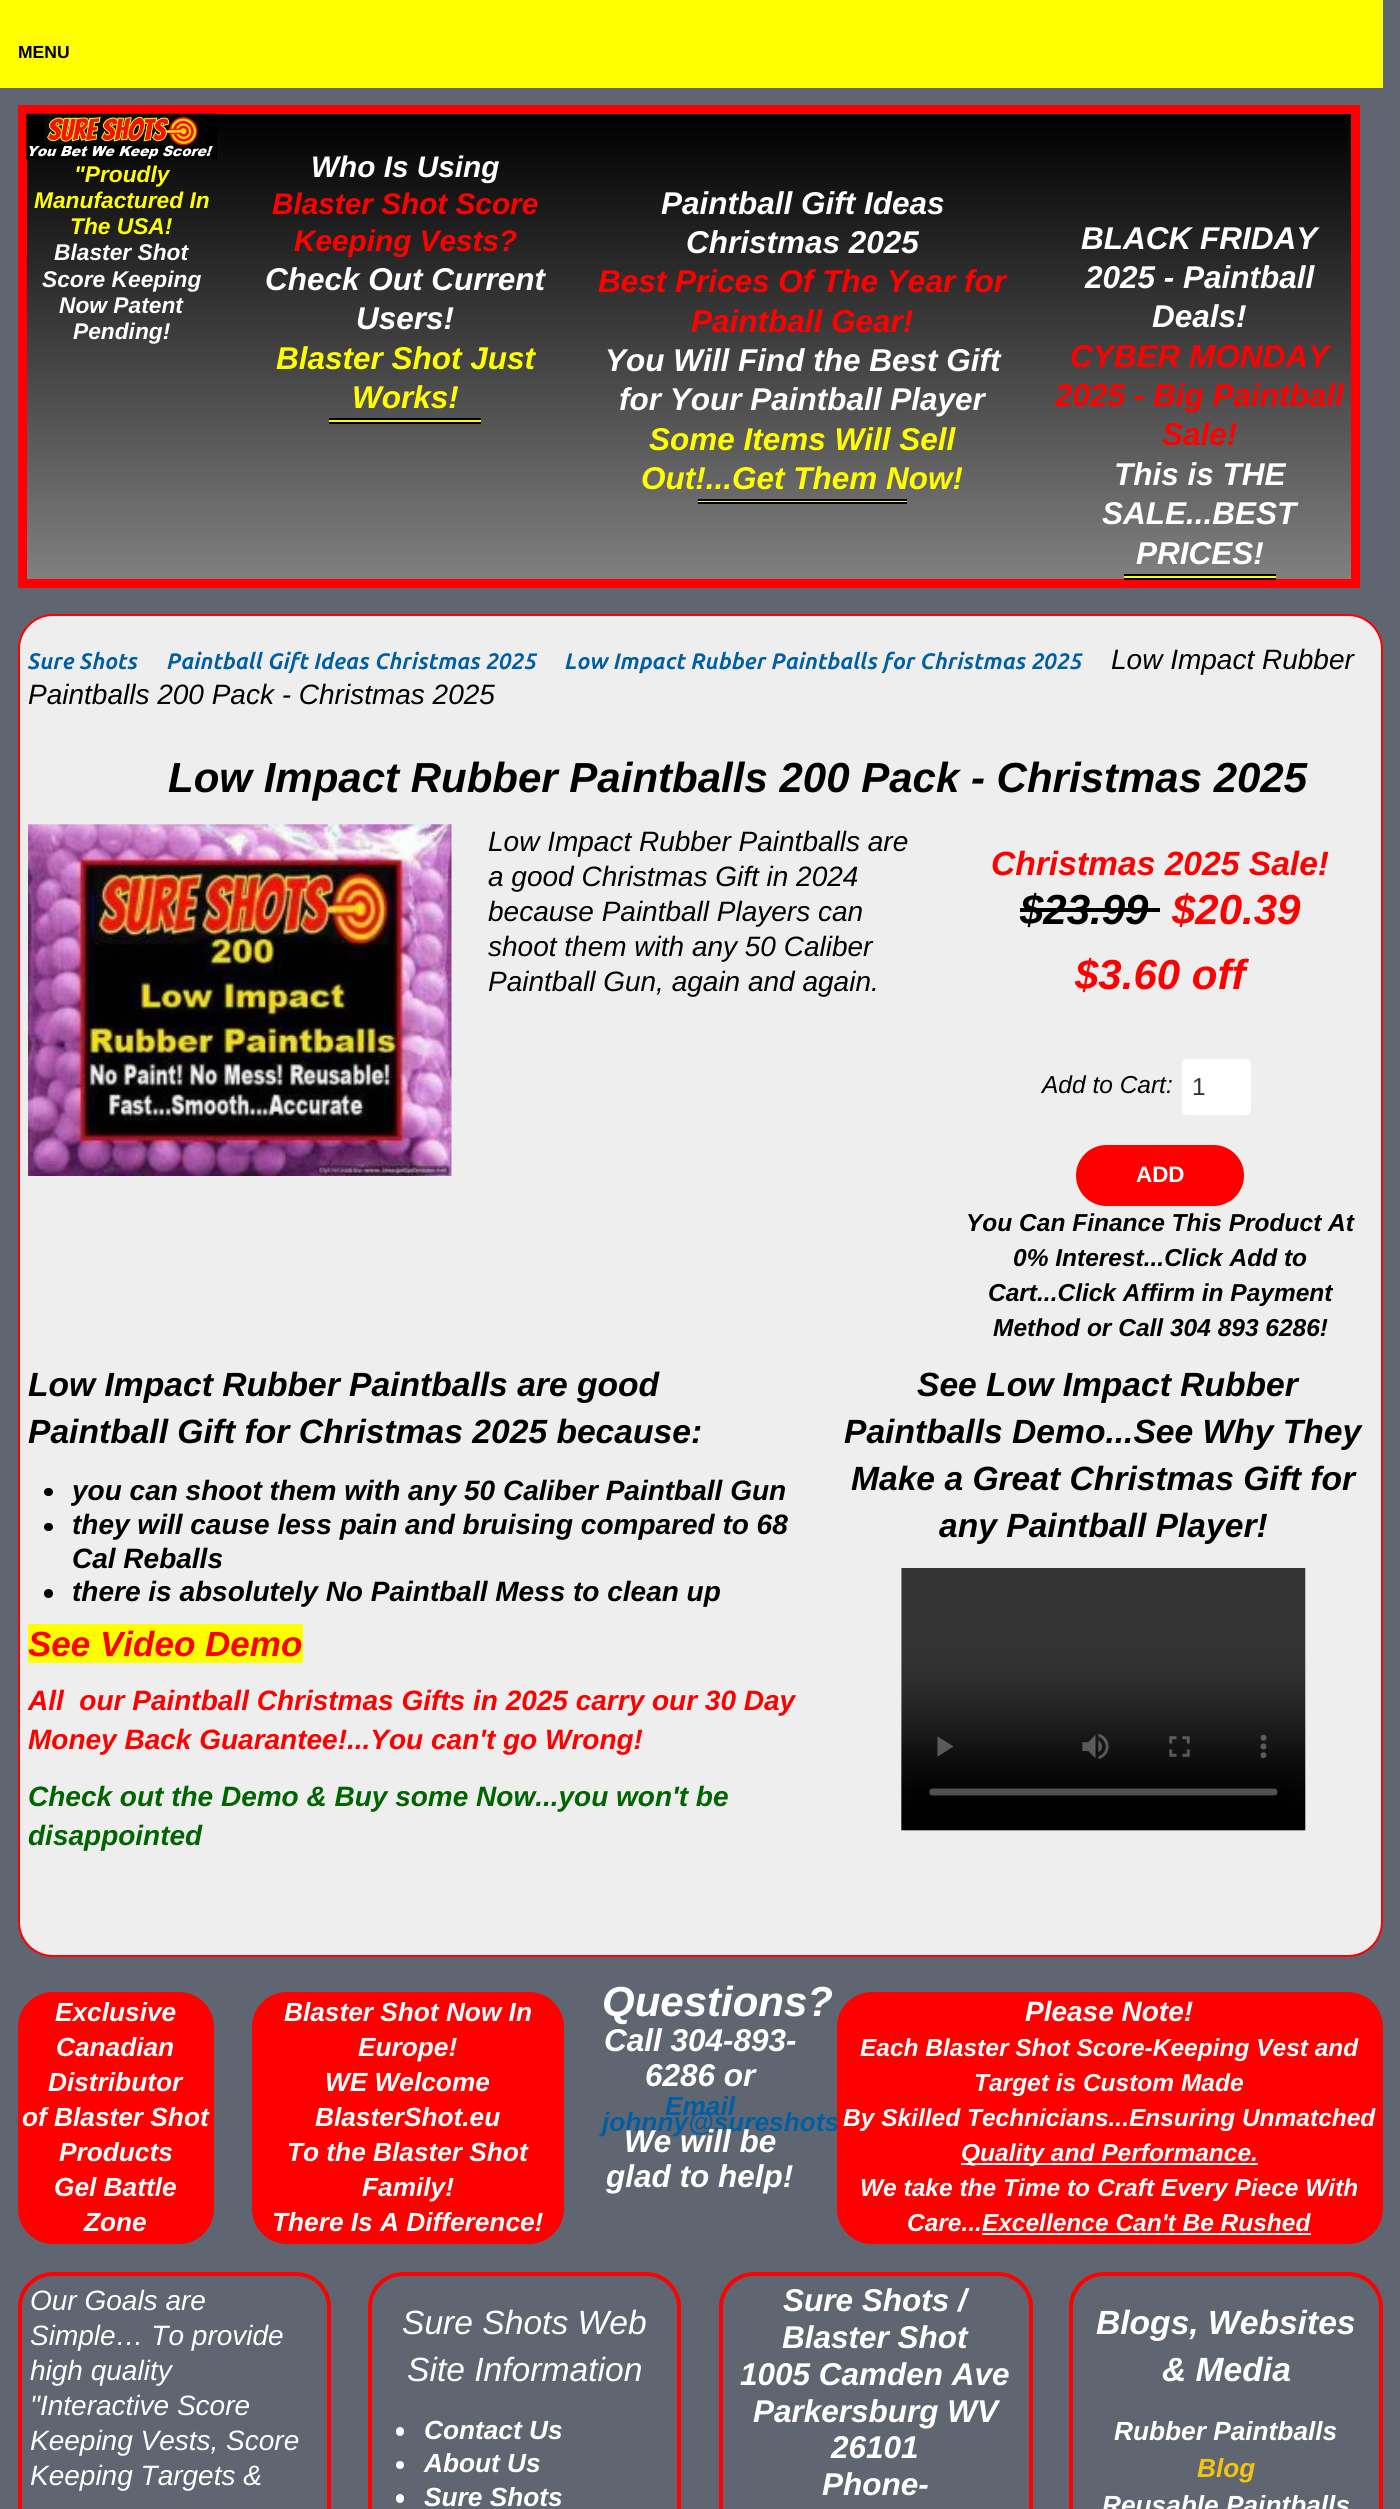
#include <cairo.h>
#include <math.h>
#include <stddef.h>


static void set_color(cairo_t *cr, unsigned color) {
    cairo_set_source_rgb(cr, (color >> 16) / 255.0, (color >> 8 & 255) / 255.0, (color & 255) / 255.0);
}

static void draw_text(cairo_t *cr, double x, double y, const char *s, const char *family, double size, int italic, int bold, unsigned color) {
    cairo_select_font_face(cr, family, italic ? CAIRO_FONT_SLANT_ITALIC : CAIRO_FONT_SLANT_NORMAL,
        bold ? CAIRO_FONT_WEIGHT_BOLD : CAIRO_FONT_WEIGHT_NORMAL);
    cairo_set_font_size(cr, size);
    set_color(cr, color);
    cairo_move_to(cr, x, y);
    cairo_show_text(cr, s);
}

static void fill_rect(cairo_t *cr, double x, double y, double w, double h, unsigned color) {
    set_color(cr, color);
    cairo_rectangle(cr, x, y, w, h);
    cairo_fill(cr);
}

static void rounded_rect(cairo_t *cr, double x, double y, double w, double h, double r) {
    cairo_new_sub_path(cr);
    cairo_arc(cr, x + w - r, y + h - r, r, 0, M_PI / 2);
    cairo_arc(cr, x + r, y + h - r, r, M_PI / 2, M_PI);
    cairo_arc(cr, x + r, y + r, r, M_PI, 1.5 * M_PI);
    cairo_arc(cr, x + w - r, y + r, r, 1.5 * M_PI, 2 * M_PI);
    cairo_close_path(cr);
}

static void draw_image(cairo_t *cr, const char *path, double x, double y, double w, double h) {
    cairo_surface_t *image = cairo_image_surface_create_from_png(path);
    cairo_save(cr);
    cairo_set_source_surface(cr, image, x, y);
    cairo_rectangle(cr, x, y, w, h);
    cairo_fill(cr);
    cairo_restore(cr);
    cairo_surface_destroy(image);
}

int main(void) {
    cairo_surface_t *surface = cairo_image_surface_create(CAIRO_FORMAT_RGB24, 1400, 2509);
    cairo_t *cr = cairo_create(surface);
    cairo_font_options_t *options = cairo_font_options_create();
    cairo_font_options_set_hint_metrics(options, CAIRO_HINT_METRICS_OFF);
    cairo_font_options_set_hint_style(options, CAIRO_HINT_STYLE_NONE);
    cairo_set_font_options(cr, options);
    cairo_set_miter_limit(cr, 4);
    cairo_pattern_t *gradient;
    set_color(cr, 0x5F6672);
    cairo_paint(cr);
    fill_rect(cr, 0, 0, 1383, 88, 0xFFFF00);
    draw_text(cr, 18, 58, "MENU", "Liberation Sans", 17.5, 0, 1, 0x000000);
    gradient = cairo_pattern_create_linear(689, 114, 689, 579);
    cairo_pattern_add_color_stop_rgba(gradient, 0, 0, 0, 0, 1);
    cairo_pattern_add_color_stop_rgba(gradient, 1, 0.502, 0.502, 0.502, 1);
    cairo_set_source(cr, gradient);
    cairo_pattern_destroy(gradient);
    cairo_rectangle(cr, 27, 114, 1324, 465);
    cairo_fill(cr);
    cairo_rectangle(cr, 22.5, 109.5, 1333, 474);
    set_color(cr, 0xFF0000);
    cairo_set_line_width(cr, 9);
    cairo_stroke(cr);
    draw_image(cr, "assets/img1.png", 26, 113, 191, 47);
    draw_text(cr, 74, 182, "\"Proudly", "Liberation Sans", 22.75, 1, 1, 0xFFFF00);
    draw_text(cr, 34, 208, "Manufactured In", "Liberation Sans", 22.75, 1, 1, 0xFFFF00);
    draw_text(cr, 70, 234, "The USA!", "Liberation Sans", 22.75, 1, 1, 0xFFFF00);
    draw_text(cr, 54, 260, "Blaster Shot", "Liberation Sans", 22.75, 1, 1, 0xFFFFFF);
    draw_text(cr, 42, 287, "Score Keeping", "Liberation Sans", 22.75, 1, 1, 0xFFFFFF);
    draw_text(cr, 59, 313, "Now Patent", "Liberation Sans", 22.75, 1, 1, 0xFFFFFF);
    draw_text(cr, 73, 339, "Pending!", "Liberation Sans", 22.75, 1, 1, 0xFFFFFF);
    draw_text(cr, 311, 177, "Who Is Using", "Liberation Sans", 29.75, 1, 1, 0xFFFFFF);
    draw_text(cr, 272, 214, "Blaster Shot Score", "Liberation Sans", 29.75, 1, 1, 0xFF0000);
    draw_text(cr, 294, 251, "Keeping Vests?", "Liberation Sans", 29.75, 1, 1, 0xFF0000);
    draw_text(cr, 265, 290, "Check Out Current", "Liberation Sans", 31.5, 1, 1, 0xFFFFFF);
    draw_text(cr, 356, 329, "Users!", "Liberation Sans", 31.5, 1, 1, 0xFFFFFF);
    draw_text(cr, 276, 369, "Blaster Shot Just", "Liberation Sans", 31.5, 1, 1, 0xFFFF00);
    draw_text(cr, 352, 408, "Works!", "Liberation Sans", 31.5, 1, 1, 0xFFFF00);
    fill_rect(cr, 329, 420, 152, 2, 0xFFFF00);
    fill_rect(cr, 329, 418, 152, 2, 0x000000);
    fill_rect(cr, 329, 422, 152, 2, 0x000000);
    draw_text(cr, 661, 214, "Paintball Gift Ideas", "Liberation Sans", 31.5, 1, 1, 0xFFFFFF);
    draw_text(cr, 686, 253, "Christmas 2025", "Liberation Sans", 31.5, 1, 1, 0xFFFFFF);
    draw_text(cr, 598, 292, "Best Prices Of The Year for", "Liberation Sans", 31.5, 1, 1, 0xFF0000);
    draw_text(cr, 691, 332, "Paintball Gear!", "Liberation Sans", 31.5, 1, 1, 0xFF0000);
    draw_text(cr, 605, 371, "You Will Find the Best Gift", "Liberation Sans", 31.5, 1, 1, 0xFFFFFF);
    draw_text(cr, 619, 410, "for Your Paintball Player", "Liberation Sans", 31.5, 1, 1, 0xFFFFFF);
    draw_text(cr, 649, 450, "Some Items Will Sell", "Liberation Sans", 31.5, 1, 1, 0xFFFF00);
    draw_text(cr, 641, 489, "Out!...Get Them Now!", "Liberation Sans", 31.5, 1, 1, 0xFFFF00);
    fill_rect(cr, 698, 501, 209, 1, 0xFFFF00);
    fill_rect(cr, 698, 499, 209, 2, 0x000000);
    fill_rect(cr, 698, 502, 209, 2, 0x000000);
    draw_text(cr, 1081, 249, "BLACK FRIDAY", "Liberation Sans", 31.5, 1, 1, 0xFFFFFF);
    draw_text(cr, 1085, 288, "2025 - Paintball", "Liberation Sans", 31.5, 1, 1, 0xFFFFFF);
    draw_text(cr, 1152, 327, "Deals!", "Liberation Sans", 31.5, 1, 1, 0xFFFFFF);
    draw_text(cr, 1070, 367, "CYBER MONDAY", "Liberation Sans", 31.5, 1, 1, 0xFF0000);
    draw_text(cr, 1055, 406, "2025 - Big Paintball", "Liberation Sans", 31.5, 1, 1, 0xFF0000);
    draw_text(cr, 1162, 445, "Sale!", "Liberation Sans", 31.5, 1, 1, 0xFF0000);
    draw_text(cr, 1114, 485, "This is THE", "Liberation Sans", 31.5, 1, 1, 0xFFFFFF);
    draw_text(cr, 1102, 524, "SALE...BEST", "Liberation Sans", 31.5, 1, 1, 0xFFFFFF);
    draw_text(cr, 1136, 564, "PRICES!", "Liberation Sans", 31.5, 1, 1, 0xFFFFFF);
    fill_rect(cr, 1124, 576, 152, 2, 0xFFFF00);
    fill_rect(cr, 1124, 574, 152, 2, 0x000000);
    fill_rect(cr, 1124, 578, 152, 2, 0x000000);
    set_color(cr, 0xEEEEEE);
    rounded_rect(cr, 19, 615, 1363, 1341, 34);
    cairo_fill_preserve(cr);
    set_color(cr, 0xFF0000);
    cairo_set_line_width(cr, 2);
    cairo_stroke(cr);
    draw_text(cr, 28, 669, "Sure Shots", "Ubuntu", 22.4, 1, 1, 0x005FA3);
    draw_text(cr, 167, 669, "Paintball Gift Ideas Christmas 2025", "Ubuntu", 22.4, 1, 1, 0x005FA3);
    draw_text(cr, 565, 669, "Low Impact Rubber Paintballs for Christmas 2025", "Ubuntu", 22.4, 1, 1, 0x005FA3);
    draw_text(cr, 1111, 669, "Low Impact Rubber", "Liberation Sans", 28, 1, 0, 0x000000);
    draw_text(cr, 28, 704, "Paintballs 200 Pack - Christmas 2025", "Liberation Sans", 28, 1, 0, 0x000000);
    draw_text(cr, 168, 792, "Low Impact Rubber Paintballs 200 Pack - Christmas 2025", "Liberation Sans", 42, 1, 1, 0x000000);
    draw_image(cr, "assets/img2.png", 28, 824, 424, 352);
    draw_text(cr, 488, 851, "Low Impact Rubber Paintballs are", "Liberation Sans", 28, 1, 0, 0x000000);
    draw_text(cr, 488, 886, "a good Christmas Gift in 2024", "Liberation Sans", 28, 1, 0, 0x000000);
    draw_text(cr, 488, 921, "because Paintball Players can", "Liberation Sans", 28, 1, 0, 0x000000);
    draw_text(cr, 488, 956, "shoot them with any 50 Caliber", "Liberation Sans", 28, 1, 0, 0x000000);
    draw_text(cr, 488, 991, "Paintball Gun, again and again.", "Liberation Sans", 28, 1, 0, 0x000000);
    draw_text(cr, 991, 875, "Christmas 2025 Sale!", "Liberation Sans", 33.6, 1, 1, 0xFF0000);
    draw_text(cr, 1020, 924, "$23.99", "Liberation Sans", 42, 1, 1, 0x000000);
    fill_rect(cr, 1020, 908, 140, 4, 0x000000);
    draw_text(cr, 1172, 924, "$20.39", "Liberation Sans", 42, 1, 1, 0xFF0000);
    draw_text(cr, 1075, 989, "$3.60 off", "Liberation Sans", 42, 1, 1, 0xFF0000);
    draw_text(cr, 1042, 1093, "Add to Cart:", "Liberation Sans", 24.5, 1, 0, 0x000000);
    set_color(cr, 0xFFFFFF);
    rounded_rect(cr, 1181, 1058, 71, 58, 6);
    cairo_fill_preserve(cr);
    set_color(cr, 0xEEEEEE);
    cairo_stroke(cr);
    draw_text(cr, 1192, 1095, "1", "Liberation Sans", 24.5, 0, 0, 0x333333);
    set_color(cr, 0xFF0000);
    rounded_rect(cr, 1076, 1145, 168, 61, 30.5);
    cairo_fill(cr);
    draw_text(cr, 1136, 1182, "ADD", "Liberation Sans", 22.4, 0, 1, 0xFFFFFF);
    draw_text(cr, 966, 1231, "You Can Finance This Product At", "Liberation Sans", 24.5, 1, 1, 0x000000);
    draw_text(cr, 1013, 1266, "0% Interest...Click Add to", "Liberation Sans", 24.5, 1, 1, 0x000000);
    draw_text(cr, 988, 1301, "Cart...Click Affirm in Payment", "Liberation Sans", 24.5, 1, 1, 0x000000);
    draw_text(cr, 993, 1336, "Method or Call 304 893 6286!", "Liberation Sans", 24.5, 1, 1, 0x000000);
    draw_text(cr, 28, 1396, "Low Impact Rubber Paintballs are good", "Liberation Sans", 33.6, 1, 1, 0x000000);
    draw_text(cr, 28, 1443, "Paintball Gift for Christmas 2025 because:", "Liberation Sans", 33.6, 1, 1, 0x000000);
    rounded_rect(cr, 44, 1488, 9, 8, 4);
    cairo_fill(cr);
    draw_text(cr, 72, 1500, "you can shoot them with any 50 Caliber Paintball Gun", "Liberation Sans", 28, 1, 1, 0x000000);
    rounded_rect(cr, 44, 1523, 9, 8, 4);
    cairo_fill(cr);
    draw_text(cr, 72, 1534, "they will cause less pain and bruising compared to 68", "Liberation Sans", 28, 1, 1, 0x000000);
    draw_text(cr, 72, 1568, "Cal Reballs", "Liberation Sans", 28, 1, 1, 0x000000);
    cairo_new_path(cr);
    cairo_arc(cr, 48.5, 1593.5, 4.5, 0, 2 * M_PI);
    cairo_fill(cr);
    draw_text(cr, 72, 1601, "there is absolutely No Paintball Mess to clean up", "Liberation Sans", 28, 1, 1, 0x000000);
    fill_rect(cr, 28, 1624, 275, 39, 0xFFFF00);
    draw_text(cr, 28, 1656, "See Video Demo", "Liberation Sans", 35, 1, 1, 0xFF0000);
    draw_text(cr, 28, 1710, "All  our Paintball Christmas Gifts in 2025 carry our 30 Day", "Liberation Sans", 28, 1, 1, 0xFF0000);
    draw_text(cr, 28, 1749, "Money Back Guarantee!...You can't go Wrong!", "Liberation Sans", 28, 1, 1, 0xFF0000);
    draw_text(cr, 28, 1806, "Check out the Demo & Buy some Now...you won't be", "Liberation Sans", 28, 1, 1, 0x006400);
    draw_text(cr, 28, 1845, "disappointed", "Liberation Sans", 28, 1, 1, 0x006400);
    draw_text(cr, 917, 1396, "See Low Impact Rubber", "Liberation Sans", 33.6, 1, 1, 0x000000);
    draw_text(cr, 844, 1443, "Paintballs Demo...See Why They", "Liberation Sans", 33.6, 1, 1, 0x000000);
    draw_text(cr, 851, 1490, "Make a Great Christmas Gift for", "Liberation Sans", 33.6, 1, 1, 0x000000);
    draw_text(cr, 939, 1537, "any Paintball Player!", "Liberation Sans", 33.6, 1, 1, 0x000000);
    draw_image(cr, "assets/img3.png", 901, 1568, 405, 263);
    set_color(cr, 0xFF0000);
    rounded_rect(cr, 20, 1994, 192, 248, 33);
    cairo_fill_preserve(cr);
    cairo_set_line_width(cr, 4);
    cairo_stroke(cr);
    draw_text(cr, 55, 2021, "Exclusive", "Liberation Sans", 26.25, 1, 1, 0xFFFFFF);
    draw_text(cr, 56, 2056, "Canadian", "Liberation Sans", 26.25, 1, 1, 0xFFFFFF);
    draw_text(cr, 48, 2091, "Distributor", "Liberation Sans", 26.25, 1, 1, 0xFFFFFF);
    draw_text(cr, 22, 2126, "of Blaster Shot", "Liberation Sans", 26.25, 1, 1, 0xFFFFFF);
    draw_text(cr, 59, 2161, "Products", "Liberation Sans", 26.25, 1, 1, 0xFFFFFF);
    draw_text(cr, 54, 2196, "Gel Battle", "Liberation Sans", 26.25, 1, 1, 0xFFFFFF);
    draw_text(cr, 84, 2231, "Zone", "Liberation Sans", 26.25, 1, 1, 0xFFFFFF);
    set_color(cr, 0xFF0000);
    rounded_rect(cr, 254, 1994, 308, 248, 33);
    cairo_fill_preserve(cr);
    cairo_stroke(cr);
    draw_text(cr, 284, 2021, "Blaster Shot Now In", "Liberation Sans", 26.25, 1, 1, 0xFFFFFF);
    draw_text(cr, 358, 2056, "Europe!", "Liberation Sans", 26.25, 1, 1, 0xFFFFFF);
    draw_text(cr, 325, 2091, "WE Welcome", "Liberation Sans", 26.25, 1, 1, 0xFFFFFF);
    draw_text(cr, 315, 2126, "BlasterShot.eu", "Liberation Sans", 26.25, 1, 1, 0xFFFFFF);
    draw_text(cr, 287, 2161, "To the Blaster Shot", "Liberation Sans", 26.25, 1, 1, 0xFFFFFF);
    draw_text(cr, 362, 2196, "Family!", "Liberation Sans", 26.25, 1, 1, 0xFFFFFF);
    draw_text(cr, 272, 2231, "There Is A Difference!", "Liberation Sans", 26.25, 1, 1, 0xFFFFFF);
    draw_text(cr, 602, 2016, "Questions?", "Liberation Sans", 42, 1, 1, 0xFFFFFF);
    draw_text(cr, 604, 2051, "Call 304-893-", "Liberation Sans", 31.5, 1, 1, 0xFFFFFF);
    draw_text(cr, 645, 2086, "6286 or", "Liberation Sans", 31.5, 1, 1, 0xFFFFFF);
    draw_text(cr, 665, 2115, "Email", "Liberation Sans", 26.25, 1, 1, 0x005FA3);
    draw_text(cr, 602, 2131, "johnny@sureshots", "Liberation Sans", 26.25, 1, 1, 0x005FA3);
    draw_text(cr, 624, 2152, "We will be", "Liberation Sans", 31.5, 1, 1, 0xFFFFFF);
    draw_text(cr, 606, 2187, "glad to help!", "Liberation Sans", 31.5, 1, 1, 0xFFFFFF);
    set_color(cr, 0xFF0000);
    rounded_rect(cr, 839, 1994, 542, 248, 33);
    cairo_fill_preserve(cr);
    cairo_stroke(cr);
    draw_text(cr, 1025, 2021, "Please Note!", "Liberation Sans", 28, 1, 1, 0xFFFFFF);
    draw_text(cr, 860, 2056, "Each Blaster Shot Score-Keeping Vest and", "Liberation Sans", 24.5, 1, 1, 0xFFFFFF);
    draw_text(cr, 974, 2091, "Target is Custom Made", "Liberation Sans", 24.5, 1, 1, 0xFFFFFF);
    draw_text(cr, 843, 2126, "By Skilled Technicians...Ensuring Unmatched", "Liberation Sans", 24.5, 1, 1, 0xFFFFFF);
    fill_rect(cr, 961, 2163, 297, 2, 0xFFFFFF);
    draw_text(cr, 961, 2161, "Quality and Performance.", "Liberation Sans", 24.5, 1, 1, 0xFFFFFF);
    draw_text(cr, 860, 2196, "We take the Time to Craft Every Piece With", "Liberation Sans", 24.5, 1, 1, 0xFFFFFF);
    draw_text(cr, 907, 2231, "Care...Excellence Can't Be Rushed", "Liberation Sans", 24.5, 1, 1, 0xFFFFFF);
    fill_rect(cr, 982, 2233, 329, 2, 0xFFFFFF);
    rounded_rect(cr, 20, 2274, 309, 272, 33);
    set_color(cr, 0xFF0000);
    cairo_stroke(cr);
    draw_text(cr, 30, 2310, "Our Goals are", "Liberation Sans", 28, 1, 0, 0xFFFFFF);
    draw_text(cr, 30, 2345, "Simple… To provide", "Liberation Sans", 28, 1, 0, 0xFFFFFF);
    draw_text(cr, 30, 2380, "high quality", "Liberation Sans", 28, 1, 0, 0xFFFFFF);
    draw_text(cr, 30, 2415, "\"Interactive Score", "Liberation Sans", 28, 1, 0, 0xFFFFFF);
    draw_text(cr, 30, 2450, "Keeping Vests, Score", "Liberation Sans", 28, 1, 0, 0xFFFFFF);
    draw_text(cr, 30, 2485, "Keeping Targets &", "Liberation Sans", 28, 1, 0, 0xFFFFFF);
    rounded_rect(cr, 370, 2274, 309, 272, 33);
    set_color(cr, 0xFF0000);
    cairo_stroke(cr);
    draw_text(cr, 402, 2334, "Sure Shots Web", "Liberation Sans", 33.6, 1, 0, 0xFFFFFF);
    draw_text(cr, 407, 2381, "Site Information", "Liberation Sans", 33.6, 1, 0, 0xFFFFFF);
    rounded_rect(cr, 396, 2427, 8, 9, 4);
    cairo_fill(cr);
    draw_text(cr, 424, 2439, "Contact Us", "Liberation Sans", 26.25, 1, 1, 0xFFFFFF);
    cairo_new_path(cr);
    cairo_arc(cr, 400, 2465, 4, 0, 2 * M_PI);
    cairo_fill(cr);
    draw_text(cr, 424, 2472, "About Us", "Liberation Sans", 26.25, 1, 1, 0xFFFFFF);
    rounded_rect(cr, 396, 2494, 8, 9, 4);
    cairo_fill(cr);
    draw_text(cr, 424, 2506, "Sure Shots", "Liberation Sans", 26.25, 1, 1, 0xFFFFFF);
    rounded_rect(cr, 721, 2274, 310, 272, 33);
    set_color(cr, 0xFF0000);
    cairo_stroke(cr);
    draw_text(cr, 783, 2311, "Sure Shots /", "Liberation Sans", 31.5, 1, 1, 0xFFFFFF);
    draw_text(cr, 782, 2348, "Blaster Shot", "Liberation Sans", 31.5, 1, 1, 0xFFFFFF);
    draw_text(cr, 740, 2385, "1005 Camden Ave", "Liberation Sans", 31.5, 1, 1, 0xFFFFFF);
    draw_text(cr, 753, 2422, "Parkersburg WV", "Liberation Sans", 31.5, 1, 1, 0xFFFFFF);
    draw_text(cr, 831, 2458, "26101", "Liberation Sans", 31.5, 1, 1, 0xFFFFFF);
    draw_text(cr, 822, 2495, "Phone-", "Liberation Sans", 31.5, 1, 1, 0xFFFFFF);
    rounded_rect(cr, 1071, 2274, 310, 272, 33);
    set_color(cr, 0xFF0000);
    cairo_stroke(cr);
    draw_text(cr, 1096, 2334, "Blogs, Websites", "Liberation Sans", 33.6, 1, 1, 0xFFFFFF);
    draw_text(cr, 1162, 2381, "& Media", "Liberation Sans", 33.6, 1, 1, 0xFFFFFF);
    draw_text(cr, 1114, 2440, "Rubber Paintballs", "Liberation Sans", 26.25, 1, 1, 0xFFFFFF);
    draw_text(cr, 1197, 2477, "Blog", "Liberation Sans", 26.25, 1, 1, 0xF1C40F);
    draw_text(cr, 1102, 2514, "Reusable Paintballs", "Liberation Sans", 26.25, 1, 1, 0xFFFFFF);
    cairo_surface_write_to_png(surface, "output.png");
    cairo_font_options_destroy(options);
    cairo_destroy(cr);
    cairo_surface_destroy(surface);
    return 0;
}
